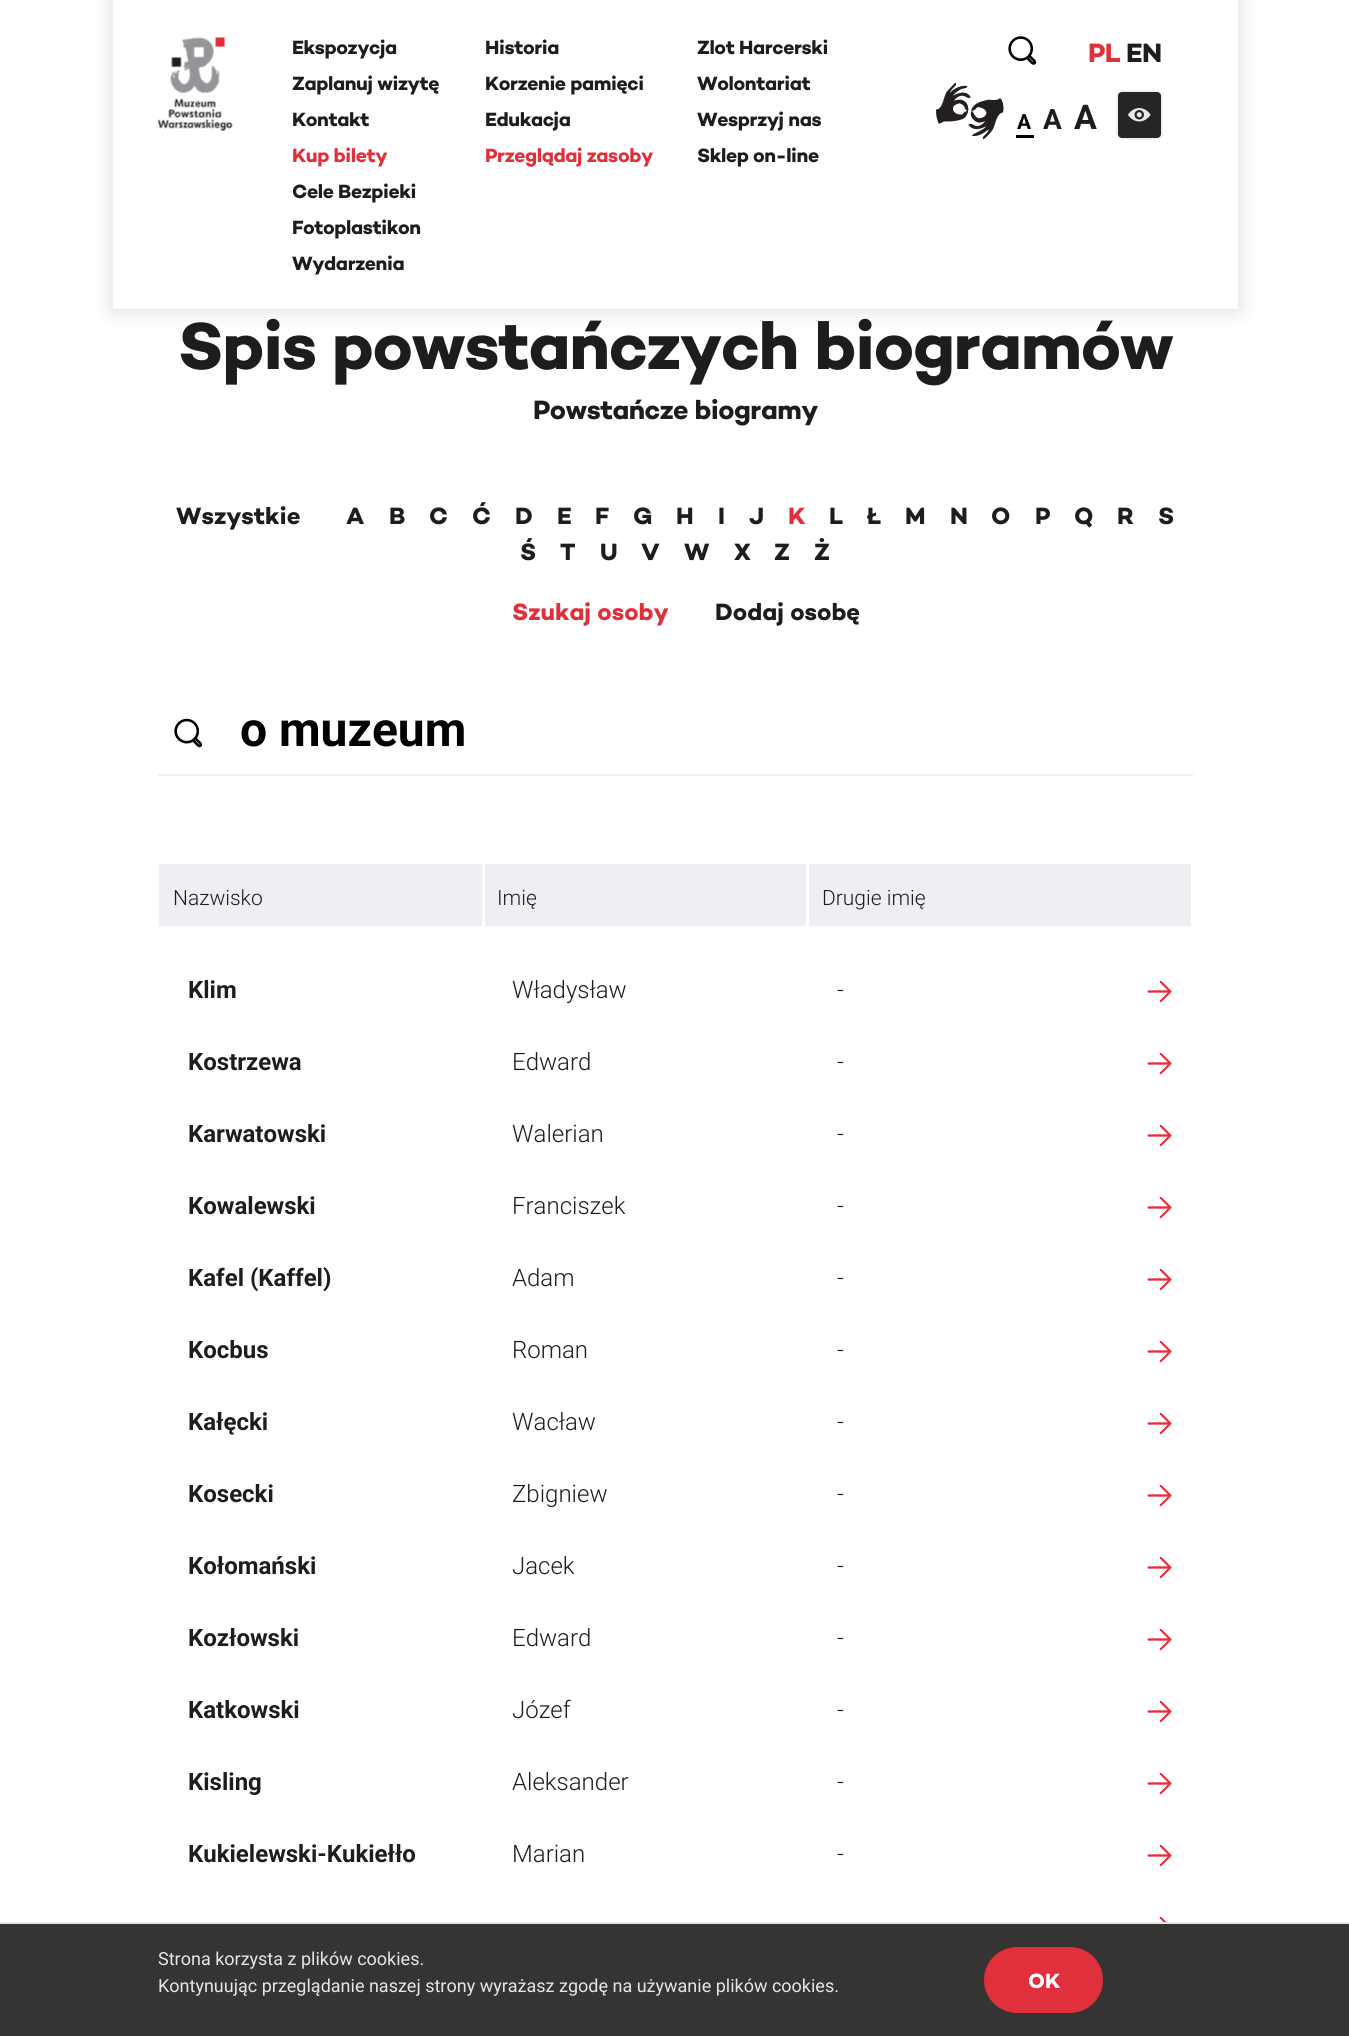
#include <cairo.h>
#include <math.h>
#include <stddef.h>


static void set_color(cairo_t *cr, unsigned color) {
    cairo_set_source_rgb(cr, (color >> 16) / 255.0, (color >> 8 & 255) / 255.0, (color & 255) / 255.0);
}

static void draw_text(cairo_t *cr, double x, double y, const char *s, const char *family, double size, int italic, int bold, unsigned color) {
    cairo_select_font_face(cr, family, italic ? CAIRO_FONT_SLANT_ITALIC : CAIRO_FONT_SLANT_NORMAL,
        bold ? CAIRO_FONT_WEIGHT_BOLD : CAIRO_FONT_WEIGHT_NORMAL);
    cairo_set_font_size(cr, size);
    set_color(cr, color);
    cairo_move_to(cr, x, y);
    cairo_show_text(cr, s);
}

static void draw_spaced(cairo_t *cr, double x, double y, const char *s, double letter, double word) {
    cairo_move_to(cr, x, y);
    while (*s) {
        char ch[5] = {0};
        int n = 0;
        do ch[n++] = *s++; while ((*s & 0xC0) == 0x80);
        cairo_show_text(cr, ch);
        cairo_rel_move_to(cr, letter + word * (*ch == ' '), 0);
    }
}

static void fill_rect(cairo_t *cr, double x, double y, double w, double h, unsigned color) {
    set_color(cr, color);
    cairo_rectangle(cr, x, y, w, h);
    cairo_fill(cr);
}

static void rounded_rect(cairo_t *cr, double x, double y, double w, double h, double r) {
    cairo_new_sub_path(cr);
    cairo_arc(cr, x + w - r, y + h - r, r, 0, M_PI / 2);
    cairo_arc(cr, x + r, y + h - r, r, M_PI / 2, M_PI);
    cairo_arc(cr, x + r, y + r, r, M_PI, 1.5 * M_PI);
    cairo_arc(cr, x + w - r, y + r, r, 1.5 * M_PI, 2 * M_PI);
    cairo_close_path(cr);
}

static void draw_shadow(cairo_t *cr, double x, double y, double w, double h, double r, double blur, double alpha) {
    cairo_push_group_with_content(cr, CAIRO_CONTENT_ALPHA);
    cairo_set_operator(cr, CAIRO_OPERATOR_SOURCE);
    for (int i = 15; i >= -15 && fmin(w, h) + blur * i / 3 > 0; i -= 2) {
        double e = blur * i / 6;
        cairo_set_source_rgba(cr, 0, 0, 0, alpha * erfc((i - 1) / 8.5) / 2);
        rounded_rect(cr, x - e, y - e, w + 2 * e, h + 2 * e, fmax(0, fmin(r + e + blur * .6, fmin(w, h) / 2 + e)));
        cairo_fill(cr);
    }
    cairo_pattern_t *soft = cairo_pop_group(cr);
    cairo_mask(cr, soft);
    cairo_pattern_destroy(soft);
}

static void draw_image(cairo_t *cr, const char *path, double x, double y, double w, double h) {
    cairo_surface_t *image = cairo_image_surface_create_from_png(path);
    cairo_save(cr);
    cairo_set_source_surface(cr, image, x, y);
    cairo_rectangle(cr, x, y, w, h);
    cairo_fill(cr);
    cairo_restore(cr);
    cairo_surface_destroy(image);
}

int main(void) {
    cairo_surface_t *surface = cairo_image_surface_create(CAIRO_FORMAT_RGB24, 1349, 2036);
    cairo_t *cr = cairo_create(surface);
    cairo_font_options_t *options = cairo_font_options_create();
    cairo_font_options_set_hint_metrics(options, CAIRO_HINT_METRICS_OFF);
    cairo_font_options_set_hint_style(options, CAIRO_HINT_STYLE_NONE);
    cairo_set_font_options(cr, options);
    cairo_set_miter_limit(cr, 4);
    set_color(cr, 0xFFFFFF);
    cairo_paint(cr);
    set_color(cr, 0x000000);
    draw_shadow(cr, 113, 0, 1125, 309, 0, 11, 0.15);
    fill_rect(cr, 113, 0, 1125, 309, 0xFFFFFF);
    draw_image(cr, "assets/img1.png", 157, 37, 76, 94);
    cairo_select_font_face(cr, "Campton", CAIRO_FONT_SLANT_NORMAL, CAIRO_FONT_WEIGHT_BOLD);
    cairo_set_font_size(cr, 19.5);
    set_color(cr, 0x1E1C1C);
    draw_spaced(cr, 292, 54, "Ekspozycja", -0.4, 0);
    draw_spaced(cr, 292, 90, "Zaplanuj wizytę", -0.4, 0);
    draw_spaced(cr, 292, 126, "Kontakt", -0.4, 0);
    set_color(cr, 0xE0303B);
    draw_spaced(cr, 292, 162, "Kup bilety", -0.4, 0);
    set_color(cr, 0x1E1C1C);
    draw_spaced(cr, 485, 54, "Historia", -0.4, 0);
    draw_spaced(cr, 485, 90, "Korzenie pamięci", -0.4, 0);
    draw_spaced(cr, 485, 126, "Edukacja", -0.4, 0);
    set_color(cr, 0xE0303B);
    draw_spaced(cr, 485, 162, "Przeglądaj zasoby", -0.4, 0);
    set_color(cr, 0x1E1C1C);
    draw_spaced(cr, 697, 54, "Zlot Harcerski", -0.4, 0);
    draw_spaced(cr, 697, 90, "Wolontariat", -0.4, 0);
    draw_spaced(cr, 697, 126, "Wesprzyj nas", -0.4, 0);
    draw_spaced(cr, 697, 162, "Sklep on-line", -0.4, 0);
    draw_spaced(cr, 292, 198, "Cele Bezpieki", -0.4, 0);
    draw_spaced(cr, 292, 234, "Fotoplastikon", -0.4, 0);
    draw_spaced(cr, 292, 270, "Wydarzenia", -0.4, 0);
    draw_image(cr, "assets/img2.png", 1008, 36, 29, 29);
    cairo_set_font_size(cr, 27);
    set_color(cr, 0xE0303B);
    draw_spaced(cr, 1088, 62, "PL", -0.5, 0);
    set_color(cr, 0x1E1C1C);
    draw_spaced(cr, 1126, 62, "EN", -0.5, 0);
    draw_image(cr, "assets/img3.png", 936, 83, 68, 57);
    draw_text(cr, 1017, 129, "A", "Roboto", 21, 0, 1, 0x000000);
    fill_rect(cr, 1016, 135, 18, 3, 0x000000);
    draw_text(cr, 1043, 129, "A", "Roboto", 28, 0, 1, 0x1E1C1C);
    draw_text(cr, 1074, 129, "A", "Roboto", 34, 0, 1, 0x1E1C1C);
    set_color(cr, 0x252525);
    rounded_rect(cr, 1117, 91, 45, 48, 5);
    cairo_fill_preserve(cr);
    set_color(cr, 0xF1F1F1);
    cairo_stroke(cr);
    draw_image(cr, "assets/img4.png", 1128, 108, 23, 14);
    cairo_select_font_face(cr, "Campton", CAIRO_FONT_SLANT_NORMAL, CAIRO_FONT_WEIGHT_BOLD);
    cairo_set_font_size(cr, 67.5);
    set_color(cr, 0x1E1C1C);
    draw_spaced(cr, 178, 369, "Spis powstańczych biogramów", -1.35, 0);
    cairo_set_font_size(cr, 27);
    draw_spaced(cr, 533, 419, "Powstańcze biogramy", -0.5, 0);
    draw_text(cr, 176, 524, "Wszystkie", "Campton", 24, 0, 1, 0x1E1C1C);
    draw_text(cr, 346, 524, "A", "Campton", 24, 0, 1, 0x1E1C1C);
    draw_text(cr, 389, 524, "B", "Campton", 24, 0, 1, 0x1E1C1C);
    draw_text(cr, 429, 524, "C", "Campton", 24, 0, 1, 0x1E1C1C);
    draw_text(cr, 472, 524, "Ć", "Campton", 24, 0, 1, 0x1E1C1C);
    draw_text(cr, 515, 524, "D", "Campton", 24, 0, 1, 0x1E1C1C);
    draw_text(cr, 557, 524, "E", "Campton", 24, 0, 1, 0x1E1C1C);
    draw_text(cr, 595, 524, "F", "Campton", 24, 0, 1, 0x1E1C1C);
    draw_text(cr, 633, 524, "G", "Campton", 24, 0, 1, 0x1E1C1C);
    draw_text(cr, 676, 524, "H", "Campton", 24, 0, 1, 0x1E1C1C);
    draw_text(cr, 718, 524, "I", "Campton", 24, 0, 1, 0x1E1C1C);
    draw_text(cr, 749, 524, "J", "Campton", 24, 0, 1, 0x1E1C1C);
    draw_text(cr, 788, 524, "K", "Campton", 24, 0, 1, 0xE0303B);
    draw_text(cr, 829, 524, "L", "Campton", 24, 0, 1, 0x1E1C1C);
    draw_text(cr, 867, 524, "Ł", "Campton", 24, 0, 1, 0x1E1C1C);
    draw_text(cr, 905, 524, "M", "Campton", 24, 0, 1, 0x1E1C1C);
    draw_text(cr, 950, 524, "N", "Campton", 24, 0, 1, 0x1E1C1C);
    draw_text(cr, 991, 524, "O", "Campton", 24, 0, 1, 0x1E1C1C);
    draw_text(cr, 1035, 524, "P", "Campton", 24, 0, 1, 0x1E1C1C);
    draw_text(cr, 1074, 524, "Q", "Campton", 24, 0, 1, 0x1E1C1C);
    draw_text(cr, 1117, 524, "R", "Campton", 24, 0, 1, 0x1E1C1C);
    draw_text(cr, 1158, 524, "S", "Campton", 24, 0, 1, 0x1E1C1C);
    draw_text(cr, 520, 560, "Ś", "Campton", 24, 0, 1, 0x1E1C1C);
    draw_text(cr, 560, 560, "T", "Campton", 24, 0, 1, 0x1E1C1C);
    draw_text(cr, 600, 560, "U", "Campton", 24, 0, 1, 0x1E1C1C);
    draw_text(cr, 641, 560, "V", "Campton", 24, 0, 1, 0x1E1C1C);
    draw_text(cr, 684, 560, "W", "Campton", 24, 0, 1, 0x1E1C1C);
    draw_text(cr, 734, 560, "X", "Campton", 24, 0, 1, 0x1E1C1C);
    draw_text(cr, 774, 560, "Z", "Campton", 24, 0, 1, 0x1E1C1C);
    draw_text(cr, 814, 560, "Ż", "Campton", 24, 0, 1, 0x1E1C1C);
    draw_text(cr, 512, 620, "Szukaj osoby", "Campton", 24, 0, 1, 0xE0303B);
    draw_text(cr, 715, 620, "Dodaj osobę", "Campton", 24, 0, 1, 0x1E1C1C);
    draw_image(cr, "assets/img5.png", 174, 718, 29, 30);
    draw_text(cr, 240, 746, "o muzeum", "Roboto", 48, 0, 1, 0x000000);
    fill_rect(cr, 158, 774, 1035, 2, 0xEEEFF2);
    fill_rect(cr, 159, 864, 323, 62, 0xEEEFF2);
    draw_text(cr, 173, 905, "Nazwisko", "Roboto Light", 21, 0, 0, 0x1E1C1C);
    fill_rect(cr, 485, 864, 321, 62, 0xEEEFF2);
    draw_text(cr, 497, 905, "Imię", "Roboto Light", 21, 0, 0, 0x1E1C1C);
    fill_rect(cr, 809, 864, 322, 62, 0xEEEFF2);
    draw_text(cr, 822, 905, "Drugie imię", "Roboto Light", 21, 0, 0, 0x1E1C1C);
    fill_rect(cr, 1131, 864, 60, 62, 0xEEEFF2);
    draw_text(cr, 188, 998, "Klim", "Roboto", 24, 0, 1, 0x1E1C1C);
    draw_text(cr, 512, 998, "Władysław", "Roboto Light", 24, 0, 0, 0x1E1C1C);
    draw_text(cr, 837, 998, "-", "Roboto Light", 24, 0, 0, 0x1E1C1C);
    draw_image(cr, "assets/img6.png", 1147, 980, 25, 23);
    draw_text(cr, 188, 1070, "Kostrzewa", "Roboto", 24, 0, 1, 0x1E1C1C);
    draw_text(cr, 512, 1070, "Edward", "Roboto Light", 24, 0, 0, 0x1E1C1C);
    draw_text(cr, 837, 1070, "-", "Roboto Light", 24, 0, 0, 0x1E1C1C);
    draw_image(cr, "assets/img6.png", 1147, 1052, 25, 23);
    draw_text(cr, 188, 1142, "Karwatowski", "Roboto", 24, 0, 1, 0x1E1C1C);
    draw_text(cr, 512, 1142, "Walerian", "Roboto Light", 24, 0, 0, 0x1E1C1C);
    draw_text(cr, 837, 1142, "-", "Roboto Light", 24, 0, 0, 0x1E1C1C);
    draw_image(cr, "assets/img6.png", 1147, 1124, 25, 23);
    draw_text(cr, 188, 1214, "Kowalewski", "Roboto", 24, 0, 1, 0x1E1C1C);
    draw_text(cr, 512, 1214, "Franciszek", "Roboto Light", 24, 0, 0, 0x1E1C1C);
    draw_text(cr, 837, 1214, "-", "Roboto Light", 24, 0, 0, 0x1E1C1C);
    draw_image(cr, "assets/img6.png", 1147, 1196, 25, 23);
    draw_text(cr, 188, 1286, "Kafel (Kaffel)", "Roboto", 24, 0, 1, 0x1E1C1C);
    draw_text(cr, 512, 1286, "Adam", "Roboto Light", 24, 0, 0, 0x1E1C1C);
    draw_text(cr, 837, 1286, "-", "Roboto Light", 24, 0, 0, 0x1E1C1C);
    draw_image(cr, "assets/img6.png", 1147, 1268, 25, 23);
    draw_text(cr, 188, 1358, "Kocbus", "Roboto", 24, 0, 1, 0x1E1C1C);
    draw_text(cr, 512, 1358, "Roman", "Roboto Light", 24, 0, 0, 0x1E1C1C);
    draw_text(cr, 837, 1358, "-", "Roboto Light", 24, 0, 0, 0x1E1C1C);
    draw_image(cr, "assets/img6.png", 1147, 1340, 25, 23);
    draw_text(cr, 188, 1430, "Kałęcki", "Roboto", 24, 0, 1, 0x1E1C1C);
    draw_text(cr, 512, 1430, "Wacław", "Roboto Light", 24, 0, 0, 0x1E1C1C);
    draw_text(cr, 837, 1430, "-", "Roboto Light", 24, 0, 0, 0x1E1C1C);
    draw_image(cr, "assets/img6.png", 1147, 1412, 25, 23);
    draw_text(cr, 188, 1502, "Kosecki", "Roboto", 24, 0, 1, 0x1E1C1C);
    draw_text(cr, 512, 1502, "Zbigniew", "Roboto Light", 24, 0, 0, 0x1E1C1C);
    draw_text(cr, 837, 1502, "-", "Roboto Light", 24, 0, 0, 0x1E1C1C);
    draw_image(cr, "assets/img6.png", 1147, 1484, 25, 23);
    draw_text(cr, 188, 1574, "Kołomański", "Roboto", 24, 0, 1, 0x1E1C1C);
    draw_text(cr, 512, 1574, "Jacek", "Roboto Light", 24, 0, 0, 0x1E1C1C);
    draw_text(cr, 837, 1574, "-", "Roboto Light", 24, 0, 0, 0x1E1C1C);
    draw_image(cr, "assets/img6.png", 1147, 1556, 25, 23);
    draw_text(cr, 188, 1646, "Kozłowski", "Roboto", 24, 0, 1, 0x1E1C1C);
    draw_text(cr, 512, 1646, "Edward", "Roboto Light", 24, 0, 0, 0x1E1C1C);
    draw_text(cr, 837, 1646, "-", "Roboto Light", 24, 0, 0, 0x1E1C1C);
    draw_image(cr, "assets/img6.png", 1147, 1628, 25, 23);
    draw_text(cr, 188, 1718, "Katkowski", "Roboto", 24, 0, 1, 0x1E1C1C);
    draw_text(cr, 512, 1718, "Józef", "Roboto Light", 24, 0, 0, 0x1E1C1C);
    draw_text(cr, 837, 1718, "-", "Roboto Light", 24, 0, 0, 0x1E1C1C);
    draw_image(cr, "assets/img6.png", 1147, 1700, 25, 23);
    draw_text(cr, 188, 1790, "Kisling", "Roboto", 24, 0, 1, 0x1E1C1C);
    draw_text(cr, 512, 1790, "Aleksander", "Roboto Light", 24, 0, 0, 0x1E1C1C);
    draw_text(cr, 837, 1790, "-", "Roboto Light", 24, 0, 0, 0x1E1C1C);
    draw_image(cr, "assets/img6.png", 1147, 1772, 25, 23);
    draw_text(cr, 188, 1862, "Kukielewski-Kukiełło", "Roboto", 24, 0, 1, 0x1E1C1C);
    draw_text(cr, 512, 1862, "Marian", "Roboto Light", 24, 0, 0, 0x1E1C1C);
    draw_text(cr, 837, 1862, "-", "Roboto Light", 24, 0, 0, 0x1E1C1C);
    draw_image(cr, "assets/img6.png", 1147, 1844, 25, 23);
    draw_image(cr, "assets/img7.png", 1159, 1916, 8, 6);
    fill_rect(cr, 0, 1924, 1349, 112, 0x363333);
    fill_rect(cr, 0, 1922, 1349, 2, 0xE4E6EA);
    draw_text(cr, 158, 1965, "Strona korzysta z plików cookies.", "Roboto", 18, 0, 0, 0xE4E6EA);
    draw_text(cr, 158, 1992, "Kontynuując przeglądanie naszej strony wyrażasz zgodę na używanie plików cookies.", "Roboto", 18, 0, 0, 0xE4E6EA);
    set_color(cr, 0xE0303B);
    rounded_rect(cr, 984, 1947, 119, 66, 33);
    cairo_fill(cr);
    draw_text(cr, 1028, 1988, "OK", "Campton", 21, 0, 1, 0xFFFFFF);
    cairo_surface_write_to_png(surface, "output.png");
    cairo_font_options_destroy(options);
    cairo_destroy(cr);
    cairo_surface_destroy(surface);
    return 0;
}
